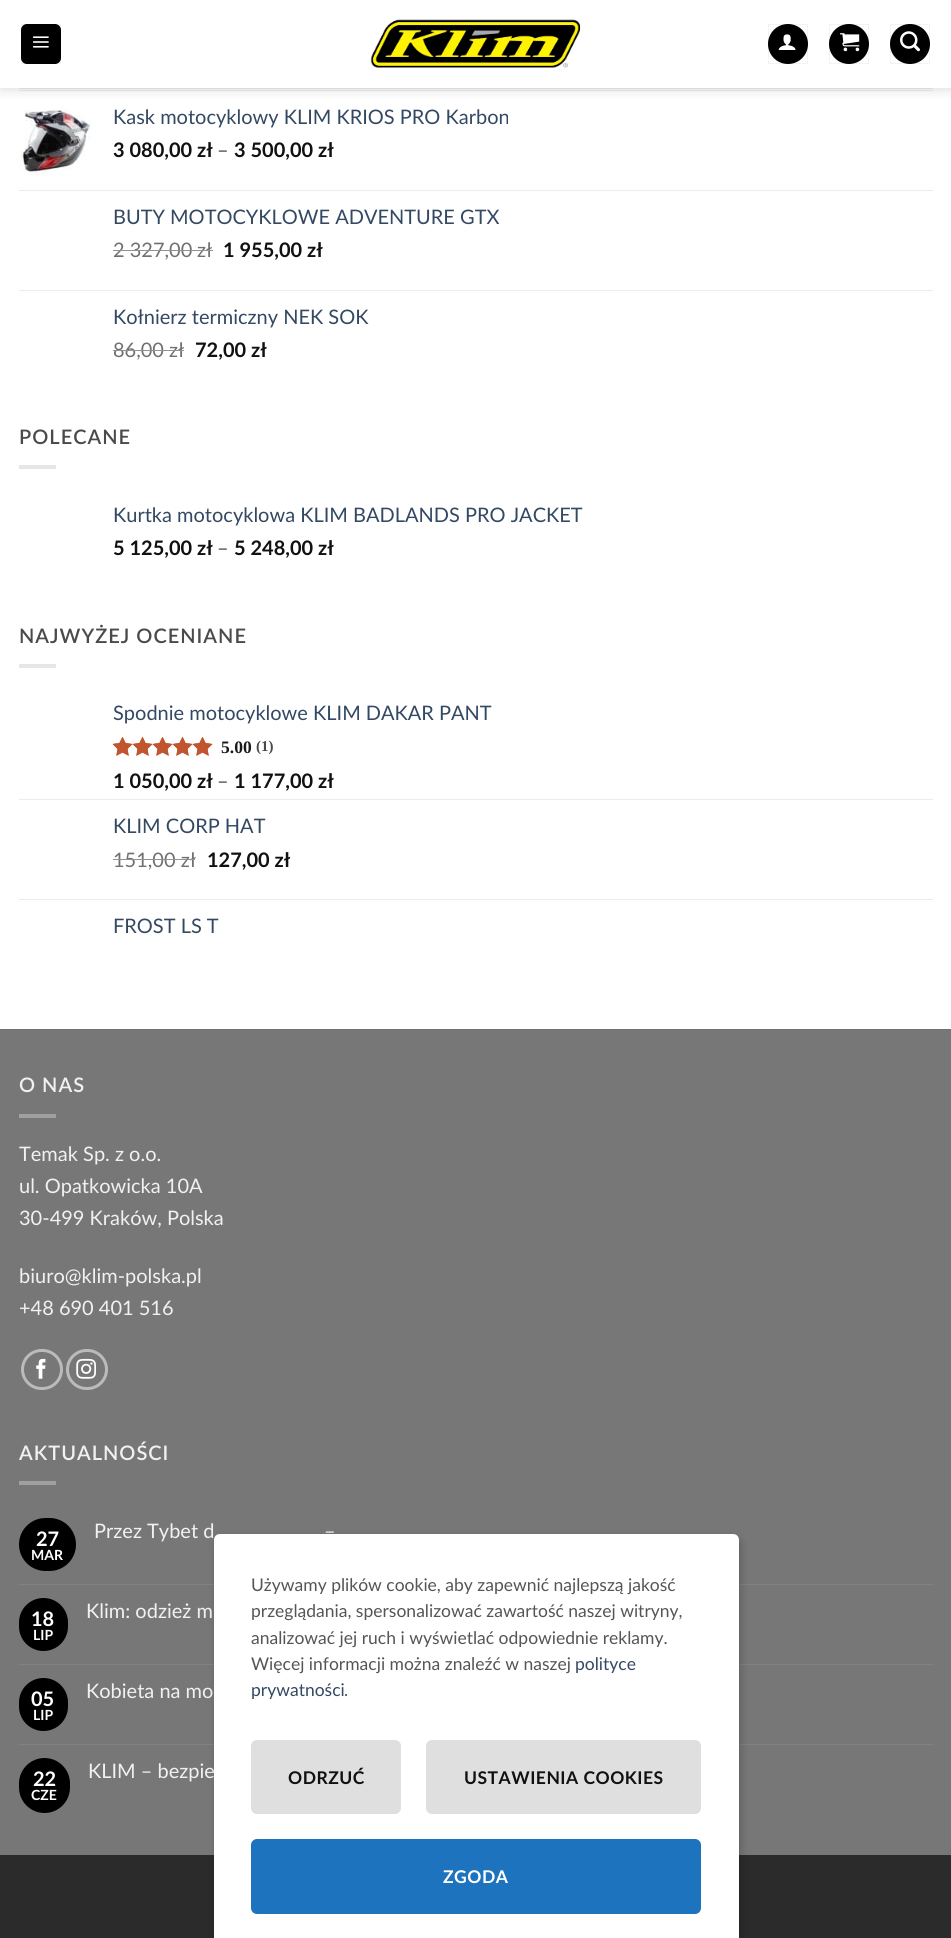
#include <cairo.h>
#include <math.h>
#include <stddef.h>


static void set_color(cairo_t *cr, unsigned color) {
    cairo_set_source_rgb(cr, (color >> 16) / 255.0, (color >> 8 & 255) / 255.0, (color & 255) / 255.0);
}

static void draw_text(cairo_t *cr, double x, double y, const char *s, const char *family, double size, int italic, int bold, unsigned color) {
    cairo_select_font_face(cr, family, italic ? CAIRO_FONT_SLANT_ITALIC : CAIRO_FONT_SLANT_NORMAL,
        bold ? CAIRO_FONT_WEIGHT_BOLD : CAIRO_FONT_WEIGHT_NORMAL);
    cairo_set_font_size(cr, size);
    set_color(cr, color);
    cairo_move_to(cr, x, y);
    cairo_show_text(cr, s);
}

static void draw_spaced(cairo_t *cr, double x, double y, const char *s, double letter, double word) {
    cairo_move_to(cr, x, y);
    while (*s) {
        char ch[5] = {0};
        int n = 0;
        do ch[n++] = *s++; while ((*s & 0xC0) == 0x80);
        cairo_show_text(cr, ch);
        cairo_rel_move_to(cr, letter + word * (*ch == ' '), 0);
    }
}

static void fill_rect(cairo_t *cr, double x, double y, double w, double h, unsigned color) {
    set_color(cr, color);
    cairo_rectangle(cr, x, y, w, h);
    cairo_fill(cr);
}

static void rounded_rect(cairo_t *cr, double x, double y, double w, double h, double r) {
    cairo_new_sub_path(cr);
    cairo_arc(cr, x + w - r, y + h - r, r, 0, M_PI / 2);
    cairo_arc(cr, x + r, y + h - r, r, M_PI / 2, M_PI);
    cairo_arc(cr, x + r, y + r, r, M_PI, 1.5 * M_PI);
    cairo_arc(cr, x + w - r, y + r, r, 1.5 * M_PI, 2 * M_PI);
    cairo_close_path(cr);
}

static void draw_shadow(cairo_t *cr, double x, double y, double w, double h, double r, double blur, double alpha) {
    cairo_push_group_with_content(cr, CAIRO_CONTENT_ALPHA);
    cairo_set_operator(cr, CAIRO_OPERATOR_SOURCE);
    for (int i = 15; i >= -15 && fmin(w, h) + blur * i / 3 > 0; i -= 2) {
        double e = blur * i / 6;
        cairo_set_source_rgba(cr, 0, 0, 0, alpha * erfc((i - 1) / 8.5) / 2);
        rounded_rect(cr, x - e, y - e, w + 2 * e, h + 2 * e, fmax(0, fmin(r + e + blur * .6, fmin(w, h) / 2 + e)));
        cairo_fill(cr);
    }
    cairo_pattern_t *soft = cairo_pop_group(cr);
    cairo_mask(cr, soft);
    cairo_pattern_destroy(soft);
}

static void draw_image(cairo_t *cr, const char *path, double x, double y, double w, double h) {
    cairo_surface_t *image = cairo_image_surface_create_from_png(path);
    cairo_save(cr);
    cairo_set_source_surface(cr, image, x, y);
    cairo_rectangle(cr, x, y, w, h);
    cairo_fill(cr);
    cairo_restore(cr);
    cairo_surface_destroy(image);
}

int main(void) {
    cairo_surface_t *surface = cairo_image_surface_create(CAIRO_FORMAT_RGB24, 951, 1938);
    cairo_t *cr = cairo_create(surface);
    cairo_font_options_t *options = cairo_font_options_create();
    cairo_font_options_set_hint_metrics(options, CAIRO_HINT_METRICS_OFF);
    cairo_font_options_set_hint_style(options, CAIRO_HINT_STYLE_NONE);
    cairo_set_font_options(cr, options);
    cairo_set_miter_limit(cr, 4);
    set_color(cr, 0xFFFFFF);
    cairo_paint(cr);
    fill_rect(cr, 19, 90, 914, 1, 0xECECEC);
    set_color(cr, 0x000000);
    draw_shadow(cr, 1, 1, 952, 88, 0, 6, 0.15);
    fill_rect(cr, 0, 0, 951, 88, 0xFFFFFF);
    set_color(cr, 0x000000);
    rounded_rect(cr, 21, 24, 40, 40, 6);
    cairo_fill(cr);
    cairo_rectangle(cr, 21.5, 24.5, 39, 39);
    cairo_set_source_rgba(cr, 0, 0, 0, 0.05);
    cairo_set_line_width(cr, 1);
    cairo_stroke(cr);
    draw_image(cr, "assets/img1.png", 32, 36, 17, 12);
    draw_image(cr, "assets/img2.png", 370, 19, 211, 49);
    set_color(cr, 0x000000);
    cairo_arc(cr, 788, 44, 20, 0, 2 * M_PI);
    cairo_fill(cr);
    cairo_rectangle(cr, 768.5, 24.5, 39, 39);
    cairo_set_source_rgba(cr, 0, 0, 0, 0.05);
    cairo_stroke(cr);
    draw_image(cr, "assets/img3.png", 778, 34, 18, 16);
    set_color(cr, 0x000000);
    cairo_arc(cr, 849, 44, 20, 0, 2 * M_PI);
    cairo_fill(cr);
    cairo_rectangle(cr, 829.5, 24.5, 39, 39);
    cairo_set_source_rgba(cr, 0, 0, 0, 0.05);
    cairo_stroke(cr);
    draw_image(cr, "assets/img4.png", 840, 33, 20, 19);
    set_color(cr, 0x000000);
    cairo_arc(cr, 910, 44, 20, 0, 2 * M_PI);
    cairo_fill(cr);
    cairo_rectangle(cr, 890.5, 24.5, 39, 39);
    cairo_set_source_rgba(cr, 0, 0, 0, 0.05);
    cairo_stroke(cr);
    draw_image(cr, "assets/img5.png", 900, 31, 20, 21);
    fill_rect(cr, 19, 88, 914, 1, 0xDBDBDB);
    draw_image(cr, "assets/img6.png", 19, 109, 72, 67);
    draw_text(cr, 113, 124, "Kask motocyklowy KLIM KRIOS PRO Karbon", "Lato", 20, 0, 0, 0x334862);
    draw_text(cr, 113, 157, "3 080,00 zł", "Lato", 20, 0, 1, 0x111111);
    draw_text(cr, 217, 157, "–", "Lato", 20, 0, 0, 0x4A4A4A);
    draw_text(cr, 234, 157, "3 500,00 zł", "Lato", 20, 0, 1, 0x111111);
    fill_rect(cr, 19, 190, 914, 1, 0xECECEC);
    draw_text(cr, 113, 224, "BUTY MOTOCYKLOWE ADVENTURE GTX", "Lato", 20, 0, 0, 0x334862);
    draw_text(cr, 113, 257, "2 327,00", "Lato", 20, 0, 0, 0x707070);
    fill_rect(cr, 113, 250, 85, 1, 0x929292);
    draw_text(cr, 197, 257, "zł", "Lato", 20, 0, 0, 0x707070);
    fill_rect(cr, 198, 250, 15, 1, 0x929292);
    draw_text(cr, 223, 257, "1 955,00 zł", "Lato", 20, 0, 1, 0x111111);
    fill_rect(cr, 19, 290, 914, 1, 0xECECEC);
    draw_text(cr, 113, 324, "Kołnierz termiczny NEK SOK", "Lato", 20, 0, 0, 0x334862);
    draw_text(cr, 113, 357, "86,00 zł", "Lato", 20, 0, 0, 0x707070);
    fill_rect(cr, 113, 350, 71, 1, 0x929292);
    draw_text(cr, 195, 357, "72,00 zł", "Lato", 20, 0, 1, 0x111111);
    cairo_select_font_face(cr, "Lato SemiBold", CAIRO_FONT_SLANT_NORMAL, CAIRO_FONT_WEIGHT_NORMAL);
    set_color(cr, 0x4A4A4A);
    draw_spaced(cr, 19, 444, "POLECANE", 1, 0);
    fill_rect(cr, 19, 465, 37, 4, 0xE6E6E6);
    draw_text(cr, 113, 522, "Kurtka motocyklowa KLIM BADLANDS PRO JACKET", "Lato", 20, 0, 0, 0x334862);
    draw_text(cr, 113, 555, "5 125,00 zł", "Lato", 20, 0, 1, 0x111111);
    draw_text(cr, 217, 555, "–", "Lato", 20, 0, 0, 0x4A4A4A);
    draw_text(cr, 234, 555, "5 248,00 zł", "Lato", 20, 0, 1, 0x111111);
    cairo_select_font_face(cr, "Lato SemiBold", CAIRO_FONT_SLANT_NORMAL, CAIRO_FONT_WEIGHT_NORMAL);
    set_color(cr, 0x4A4A4A);
    draw_spaced(cr, 19, 643, "NAJWYŻEJ OCENIANE", 1, 0);
    fill_rect(cr, 19, 664, 37, 4, 0xE6E6E6);
    draw_text(cr, 113, 720, "Spodnie motocyklowe KLIM DAKAR PANT", "Lato", 20, 0, 0, 0x334862);
    draw_image(cr, "assets/img7.png", 112, 736, 101, 20);
    draw_image(cr, "assets/img8.png", 113, 736, 100, 20);
    draw_text(cr, 221, 753, "5.00", "Liberation Serif", 17.5, 0, 1, 0x1A1A1A);
    draw_text(cr, 256, 751, "(1)", "Liberation Serif", 15, 0, 1, 0x4A4A4A);
    draw_text(cr, 113, 788, "1 050,00 zł", "Lato", 20, 0, 1, 0x111111);
    draw_text(cr, 217, 788, "–", "Lato", 20, 0, 0, 0x4A4A4A);
    draw_text(cr, 234, 788, "1 177,00 zł", "Lato", 20, 0, 1, 0x111111);
    fill_rect(cr, 19, 799, 914, 1, 0xECECEC);
    draw_text(cr, 113, 833, "KLIM CORP HAT", "Lato", 20, 0, 0, 0x334862);
    draw_text(cr, 113, 867, "151,00 zł", "Lato", 20, 0, 0, 0x707070);
    fill_rect(cr, 113, 859, 82, 1, 0x929292);
    draw_text(cr, 207, 867, "127,00 zł", "Lato", 20, 0, 1, 0x111111);
    fill_rect(cr, 19, 899, 914, 1, 0xECECEC);
    draw_text(cr, 113, 933, "FROST LS T", "Lato", 20, 0, 0, 0x334862);
    fill_rect(cr, 0, 1030, 951, 825, 0x777777);
    fill_rect(cr, 0, 1029, 951, 1, 0x717171);
    cairo_select_font_face(cr, "Lato SemiBold", CAIRO_FONT_SLANT_NORMAL, CAIRO_FONT_WEIGHT_NORMAL);
    set_color(cr, 0xF1F1F1);
    draw_spaced(cr, 19, 1092, "O NAS", 1, 0);
    fill_rect(cr, 19, 1114, 37, 4, 0xA0A0A0);
    draw_text(cr, 19, 1161, "Temak Sp. z o.o.", "Lato", 20, 0, 0, 0xF1F1F1);
    draw_text(cr, 19, 1193, "ul. Opatkowicka 10A", "Lato", 20, 0, 0, 0xF1F1F1);
    draw_text(cr, 19, 1225, "30-499 Kraków, Polska", "Lato", 20, 0, 0, 0xF1F1F1);
    draw_text(cr, 19, 1283, "biuro@klim-polska.pl", "Lato", 20, 0, 0, 0xF1F1F1);
    draw_text(cr, 19, 1315, "+48 690 401 516", "Lato", 20, 0, 0, 0xF1F1F1);
    rounded_rect(cr, 22.5, 1350.5, 39, 38, 19);
    set_color(cr, 0xBBBBBB);
    cairo_set_line_width(cr, 3);
    cairo_stroke(cr);
    draw_image(cr, "assets/img9.png", 36, 1358, 10, 21);
    rounded_rect(cr, 67.5, 1350.5, 39, 38, 19);
    cairo_stroke(cr);
    draw_image(cr, "assets/img10.png", 76, 1358, 20, 21);
    cairo_select_font_face(cr, "Lato SemiBold", CAIRO_FONT_SLANT_NORMAL, CAIRO_FONT_WEIGHT_NORMAL);
    set_color(cr, 0xF1F1F1);
    draw_spaced(cr, 19, 1460, "AKTUALNOŚCI", 1, 0);
    fill_rect(cr, 19, 1481, 37, 4, 0xA0A0A0);
    set_color(cr, 0x000000);
    rounded_rect(cr, 19, 1518, 57, 53, 26.5);
    cairo_fill(cr);
    draw_text(cr, 36, 1546, "27", "Lato", 20, 0, 1, 0xFFFFFF);
    draw_text(cr, 31, 1560, "MAR", "Lato", 14, 0, 1, 0xFFFFFF);
    draw_text(cr, 94, 1538, "Przez Tybet d", "Lato", 20, 0, 0, 0xF1F1F1);
    draw_text(cr, 324, 1538, "–", "Lato", 20, 0, 0, 0xF1F1F1);
    fill_rect(cr, 19, 1584, 914, 1, 0x828282);
    set_color(cr, 0x000000);
    rounded_rect(cr, 19, 1598, 49, 53, 24.5);
    cairo_fill(cr);
    draw_text(cr, 31, 1626, "18", "Lato", 20, 0, 1, 0xFFFFFF);
    draw_text(cr, 33, 1640, "LIP", "Lato", 14, 0, 1, 0xFFFFFF);
    draw_text(cr, 86, 1618, "Klim: odzież m", "Lato", 20, 0, 0, 0xF1F1F1);
    fill_rect(cr, 19, 1664, 914, 1, 0x828282);
    set_color(cr, 0x000000);
    rounded_rect(cr, 19, 1678, 49, 53, 24.5);
    cairo_fill(cr);
    draw_text(cr, 31, 1706, "05", "Lato", 20, 0, 1, 0xFFFFFF);
    draw_text(cr, 33, 1720, "LIP", "Lato", 14, 0, 1, 0xFFFFFF);
    draw_text(cr, 86, 1698, "Kobieta na mo", "Lato", 20, 0, 0, 0xF1F1F1);
    fill_rect(cr, 19, 1744, 914, 1, 0x828282);
    set_color(cr, 0x000000);
    rounded_rect(cr, 19, 1758, 51, 55, 25.5);
    cairo_fill(cr);
    draw_text(cr, 33, 1786, "22", "Lato", 20, 0, 1, 0xFFFFFF);
    draw_text(cr, 31, 1800, "CZE", "Lato", 14, 0, 1, 0xFFFFFF);
    draw_text(cr, 88, 1778, "KLIM – bezpie", "Lato", 20, 0, 0, 0xF1F1F1);
    fill_rect(cr, 0, 1855, 951, 83, 0x2B2B2B);
    set_color(cr, 0x000000);
    draw_shadow(cr, 216, 1538, 525, 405, 6, 4.5, 0.2);
    set_color(cr, 0xFFFFFF);
    cairo_new_path(cr);
    cairo_move_to(cr, 220, 1534);
    cairo_line_to(cr, 733, 1534);
    cairo_curve_to(cr, 736.5, 1534, 739, 1536.5, 739, 1540);
    cairo_line_to(cr, 739, 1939);
    cairo_line_to(cr, 214, 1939);
    cairo_line_to(cr, 214, 1540);
    cairo_curve_to(cr, 214, 1536.5, 216.5, 1534, 220, 1534);
    cairo_close_path(cr);
    cairo_fill(cr);
    draw_text(cr, 251, 1591, "Używamy plików cookie, aby zapewnić najlepszą jakość", "Lato", 17.5, 0, 0, 0x555555);
    draw_text(cr, 251, 1617, "przeglądania, spersonalizować zawartość naszej witryny,", "Lato", 17.5, 0, 0, 0x555555);
    draw_text(cr, 251, 1644, "analizować jej ruch i wyświetlać odpowiednie reklamy.", "Lato", 17.5, 0, 0, 0x555555);
    draw_text(cr, 251, 1670, "Więcej informacji można znaleźć w naszej", "Lato", 17.5, 0, 0, 0x555555);
    draw_text(cr, 575, 1670, "polityce", "Lato", 17.5, 0, 0, 0x334862);
    draw_text(cr, 251, 1696, "prywatności", "Lato", 17.5, 0, 0, 0x334862);
    draw_text(cr, 344, 1696, ".", "Lato", 17.5, 0, 0, 0x555555);
    set_color(cr, 0xDFDFDF);
    rounded_rect(cr, 251, 1740, 150, 74, 6);
    cairo_fill(cr);
    cairo_select_font_face(cr, "Lato", CAIRO_FONT_SLANT_NORMAL, CAIRO_FONT_WEIGHT_BOLD);
    set_color(cr, 0x111111);
    draw_spaced(cr, 288, 1784, "ODRZUĆ", 0.5, 0);
    set_color(cr, 0xDFDFDF);
    rounded_rect(cr, 426, 1740, 275, 74, 6);
    cairo_fill(cr);
    set_color(cr, 0x111111);
    draw_spaced(cr, 464, 1784, "USTAWIENIA COOKIES", 0.5, 0);
    set_color(cr, 0x1E73BE);
    rounded_rect(cr, 251, 1839, 450, 75, 6);
    cairo_fill(cr);
    set_color(cr, 0xFFFFFF);
    draw_spaced(cr, 443, 1883, "ZGODA", 0.5, 0);
    cairo_surface_write_to_png(surface, "output.png");
    cairo_font_options_destroy(options);
    cairo_destroy(cr);
    cairo_surface_destroy(surface);
    return 0;
}
